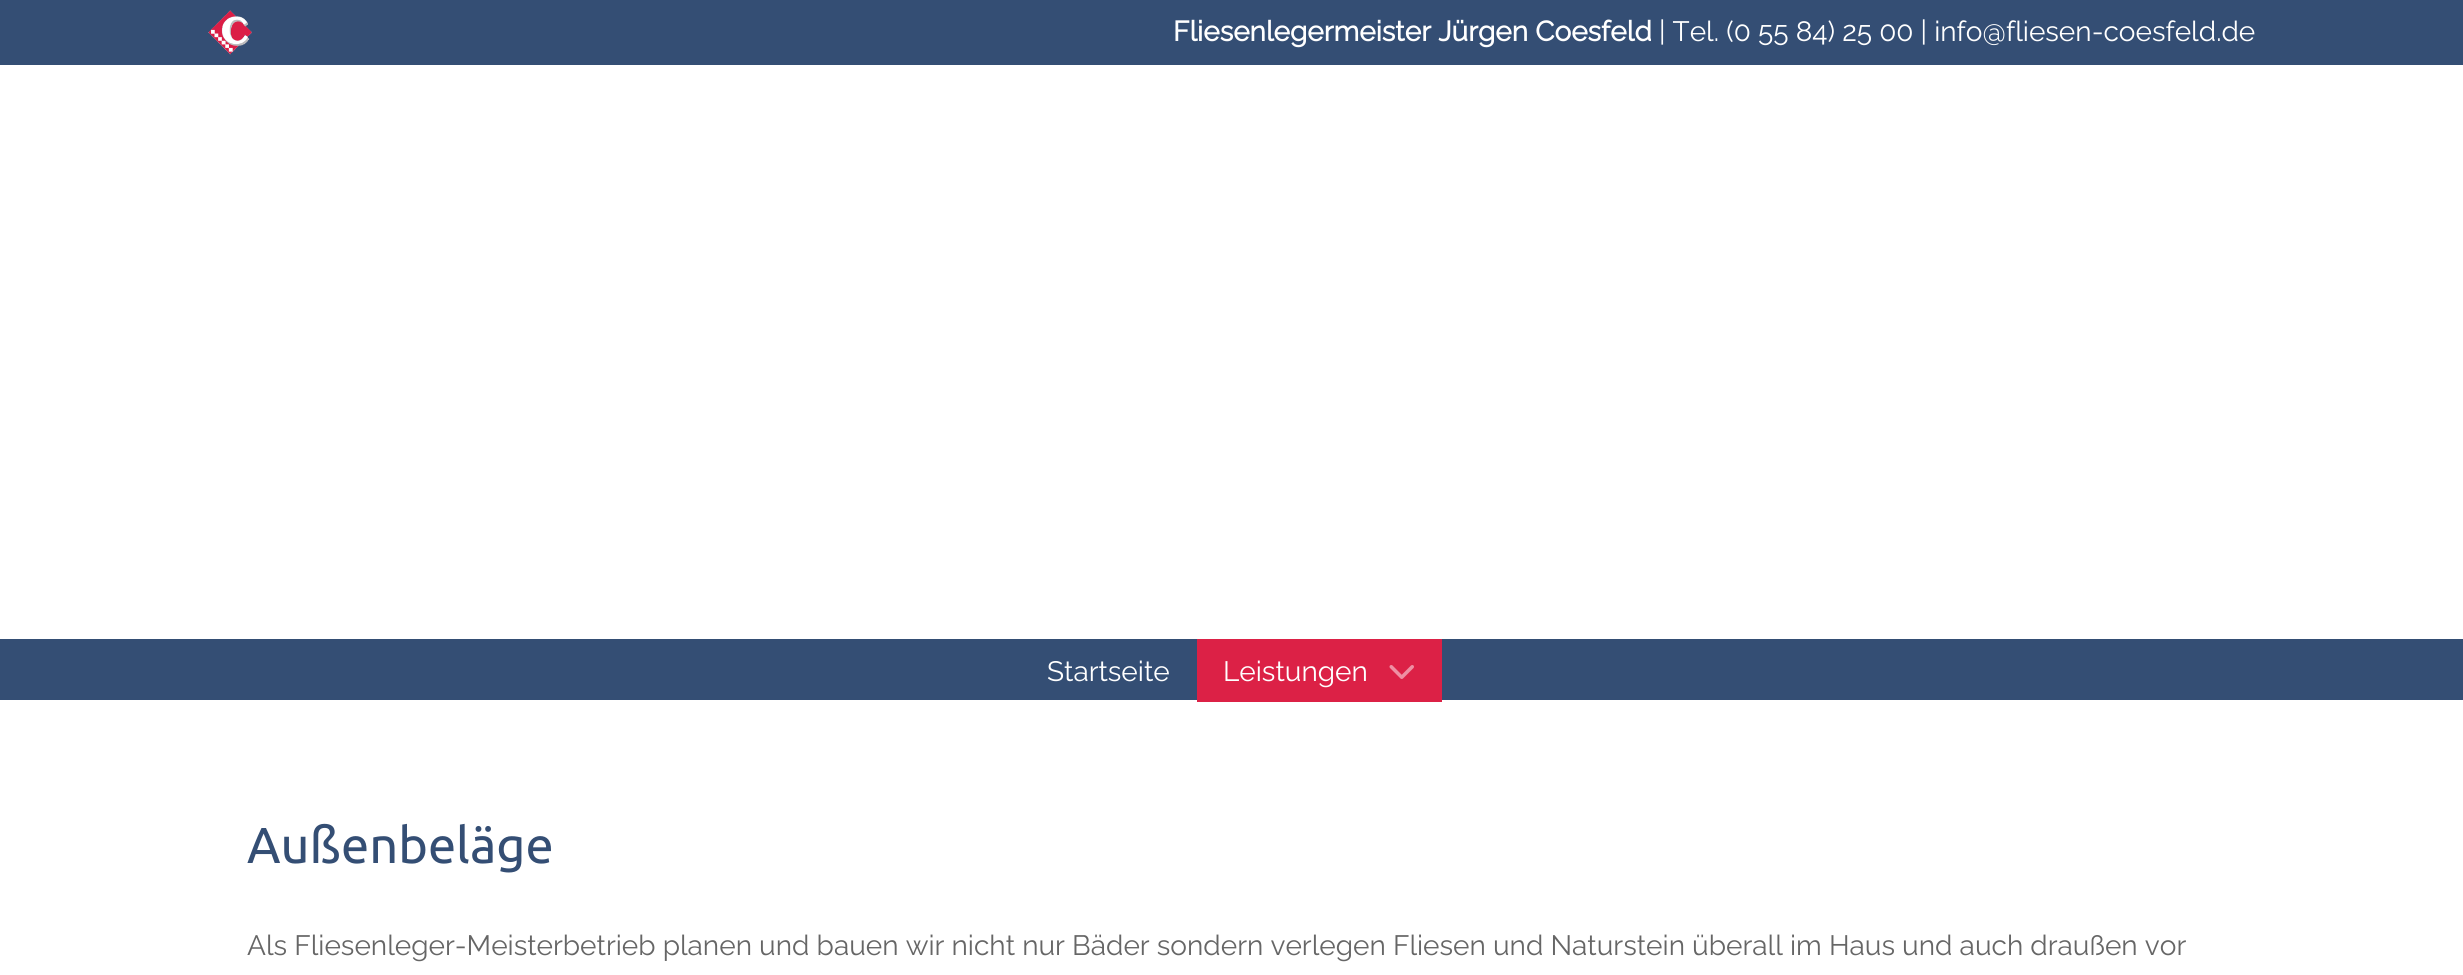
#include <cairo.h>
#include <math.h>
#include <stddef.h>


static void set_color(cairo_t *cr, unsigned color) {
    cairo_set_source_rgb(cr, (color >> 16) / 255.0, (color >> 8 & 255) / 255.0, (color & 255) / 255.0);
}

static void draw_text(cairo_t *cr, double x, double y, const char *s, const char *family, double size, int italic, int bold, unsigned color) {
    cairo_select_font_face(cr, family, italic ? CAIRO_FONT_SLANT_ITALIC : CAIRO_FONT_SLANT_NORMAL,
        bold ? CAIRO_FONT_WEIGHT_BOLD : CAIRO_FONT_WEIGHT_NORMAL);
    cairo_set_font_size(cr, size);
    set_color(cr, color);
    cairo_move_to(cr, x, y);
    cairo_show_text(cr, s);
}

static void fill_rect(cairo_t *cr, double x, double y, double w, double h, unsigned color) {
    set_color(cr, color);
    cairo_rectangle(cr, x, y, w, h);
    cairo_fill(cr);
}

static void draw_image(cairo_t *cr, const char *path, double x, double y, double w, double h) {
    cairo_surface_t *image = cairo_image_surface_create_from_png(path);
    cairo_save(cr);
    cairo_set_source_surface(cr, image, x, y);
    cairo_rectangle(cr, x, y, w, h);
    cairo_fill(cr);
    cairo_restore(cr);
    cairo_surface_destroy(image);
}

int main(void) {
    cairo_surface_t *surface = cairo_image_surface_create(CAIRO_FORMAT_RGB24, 2463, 975);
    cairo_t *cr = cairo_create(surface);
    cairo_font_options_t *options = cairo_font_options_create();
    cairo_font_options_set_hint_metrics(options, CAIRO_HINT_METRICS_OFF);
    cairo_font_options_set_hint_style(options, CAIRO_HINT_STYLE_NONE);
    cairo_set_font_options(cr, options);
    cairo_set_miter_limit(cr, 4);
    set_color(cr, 0xFFFFFF);
    cairo_paint(cr);
    fill_rect(cr, 0, 0, 2463, 65, 0x344E74);
    draw_image(cr, "assets/img1.png", 208, 10, 44, 45);
    draw_text(cr, 1173, 41, "Fliesenlegermeister Jürgen Coesfeld", "Raleway", 28, 0, 1, 0xFFFFFF);
    draw_text(cr, 1659, 41, "| Tel. (0 55 84) 25 00 | info@fliesen-coesfeld.de", "Raleway", 28, 0, 0, 0xFFFFFF);
    fill_rect(cr, 0, 639, 2463, 61, 0x344E74);
    draw_text(cr, 1047, 681, "Startseite", "Raleway", 28, 0, 0, 0xFFFFFF);
    fill_rect(cr, 1197, 639, 245, 63, 0xDC2146);
    draw_text(cr, 1223, 681, "Leistungen", "Raleway", 28, 0, 0, 0xFFFFFF);
    draw_image(cr, "assets/img2.png", 1389, 665, 25, 14);
    draw_text(cr, 247, 863, "Außenbeläge", "Ubuntu", 50.5, 0, 0, 0x344E74);
    draw_text(cr, 247, 955, "Als Fliesenleger-Meisterbetrieb planen und bauen wir nicht nur Bäder sondern verlegen Fliesen und Naturstein überall im Haus und auch draußen vor", "Raleway", 28, 0, 0, 0x666666);
    cairo_surface_write_to_png(surface, "output.png");
    cairo_font_options_destroy(options);
    cairo_destroy(cr);
    cairo_surface_destroy(surface);
    return 0;
}
